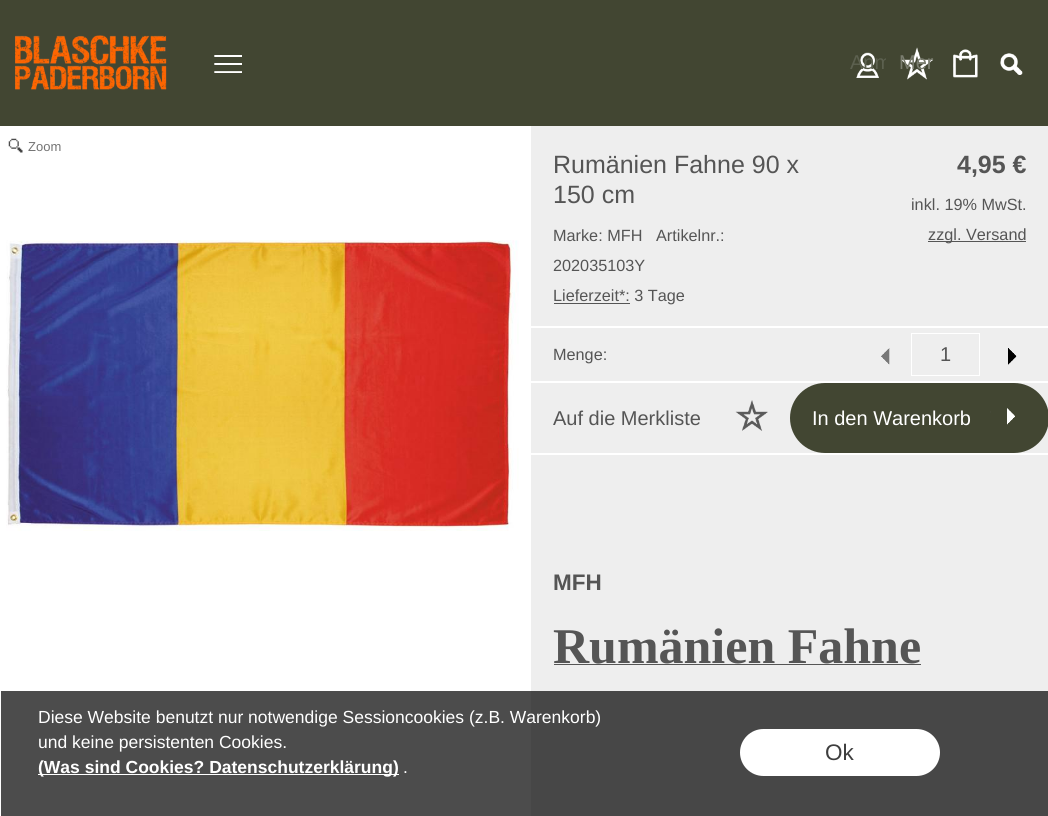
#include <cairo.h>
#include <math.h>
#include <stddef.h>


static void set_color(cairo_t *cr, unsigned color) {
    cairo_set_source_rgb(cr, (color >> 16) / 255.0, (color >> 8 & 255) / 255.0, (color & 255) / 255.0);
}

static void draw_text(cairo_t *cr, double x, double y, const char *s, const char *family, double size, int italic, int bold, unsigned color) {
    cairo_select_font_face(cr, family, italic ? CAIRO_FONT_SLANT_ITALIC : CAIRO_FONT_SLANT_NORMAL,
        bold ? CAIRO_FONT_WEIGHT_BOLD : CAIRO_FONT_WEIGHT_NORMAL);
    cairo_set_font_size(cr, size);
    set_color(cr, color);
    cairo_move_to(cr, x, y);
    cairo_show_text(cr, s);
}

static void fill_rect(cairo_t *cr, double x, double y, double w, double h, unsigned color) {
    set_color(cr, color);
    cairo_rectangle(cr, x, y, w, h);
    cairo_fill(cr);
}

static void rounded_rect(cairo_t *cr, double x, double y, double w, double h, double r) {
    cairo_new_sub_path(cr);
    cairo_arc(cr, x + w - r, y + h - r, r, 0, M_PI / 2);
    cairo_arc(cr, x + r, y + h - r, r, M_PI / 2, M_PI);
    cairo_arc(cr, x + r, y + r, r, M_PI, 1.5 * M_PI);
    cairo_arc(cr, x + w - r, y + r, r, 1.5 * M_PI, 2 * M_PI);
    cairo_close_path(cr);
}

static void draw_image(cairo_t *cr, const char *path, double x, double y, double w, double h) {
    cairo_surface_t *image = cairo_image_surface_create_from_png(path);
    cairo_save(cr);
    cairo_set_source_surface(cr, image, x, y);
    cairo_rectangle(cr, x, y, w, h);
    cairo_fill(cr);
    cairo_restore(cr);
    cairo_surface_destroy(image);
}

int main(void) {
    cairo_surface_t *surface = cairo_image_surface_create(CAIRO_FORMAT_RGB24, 1048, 816);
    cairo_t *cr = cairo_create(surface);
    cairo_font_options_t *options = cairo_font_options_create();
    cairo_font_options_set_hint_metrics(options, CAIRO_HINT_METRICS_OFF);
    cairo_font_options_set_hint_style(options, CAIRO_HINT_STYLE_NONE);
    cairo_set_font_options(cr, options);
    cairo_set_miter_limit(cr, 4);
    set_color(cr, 0xFFFFFF);
    cairo_paint(cr);
    fill_rect(cr, 0, 0, 1048, 126, 0x424632);
    draw_image(cr, "assets/img1.png", 15, 35, 152, 55);
    draw_image(cr, "assets/img2.png", 214, 55, 28, 18);
    draw_image(cr, "assets/img3.png", 856, 52, 23, 26);
    cairo_save(cr);
    cairo_rectangle(cr, 850, 48, 36, 36);
    cairo_clip(cr);
    draw_text(cr, 850, 69, "Anm", "Liberation Sans", 20, 0, 0, 0x5C604F);
    cairo_restore(cr);
    draw_image(cr, "assets/img4.png", 900, 47, 33, 33);
    draw_text(cr, 899, 69, "Mer", "Liberation Sans", 20, 0, 0, 0x7B7E70);
    draw_image(cr, "assets/img5.png", 953, 49, 25, 29);
    draw_image(cr, "assets/img6.png", 1000, 53, 23, 22);
    draw_image(cr, "assets/img7.png", 8, 138, 15, 15);
    draw_text(cr, 28, 151, "Zoom", "Liberation Sans", 13, 0, 0, 0x737373);
    draw_image(cr, "assets/img8.png", 6, 240, 513, 291);
    fill_rect(cr, 531, 126, 517, 200, 0xEEEEEE);
    draw_text(cr, 553, 173, "Rumänien Fahne 90 x", "Liberation Sans", 25, 0, 0, 0x555555);
    draw_text(cr, 553, 203, "150 cm", "Liberation Sans", 25, 0, 0, 0x555555);
    draw_text(cr, 656, 241, "Artikelnr.:", "Liberation Sans", 16.25, 0, 0, 0x555555);
    draw_text(cr, 553, 271, "202035103Y", "Liberation Sans", 16.25, 0, 0, 0x555555);
    draw_text(cr, 553, 241, "Marke: MFH", "Liberation Sans", 16.25, 0, 0, 0x555555);
    fill_rect(cr, 554, 303, 76, 1, 0x555555);
    draw_text(cr, 553, 301, "Lieferzeit*: 3 Tage", "Liberation Sans", 16.25, 0, 0, 0x555555);
    draw_text(cr, 957, 173, "4,95 €", "Liberation Sans", 25, 0, 1, 0x555555);
    draw_text(cr, 911, 210, "inkl. 19% MwSt.", "Liberation Sans", 16.25, 0, 0, 0x555555);
    fill_rect(cr, 928, 241, 98, 1, 0x555555);
    draw_text(cr, 928, 240, "zzgl. Versand", "Liberation Sans", 16.25, 0, 0, 0x555555);
    fill_rect(cr, 531, 328, 517, 53, 0xEEEEEE);
    draw_text(cr, 553, 360, "Menge:", "Liberation Sans", 16.25, 0, 0, 0x555555);
    draw_image(cr, "assets/img9.png", 881, 348, 9, 17);
    cairo_rectangle(cr, 911.5, 333.5, 68, 42);
    set_color(cr, 0xFFFFFF);
    cairo_set_line_width(cr, 1);
    cairo_stroke(cr);
    draw_text(cr, 940, 361, "1", "Liberation Sans", 20, 0, 0, 0x555555);
    draw_image(cr, "assets/img10.png", 1008, 348, 9, 17);
    fill_rect(cr, 531, 383, 517, 70, 0xEEEEEE);
    draw_text(cr, 553, 425, "Auf die Merkliste", "Liberation Sans", 20, 0, 0, 0x555555);
    draw_image(cr, "assets/img11.png", 735, 400, 33, 31);
    set_color(cr, 0x424632);
    rounded_rect(cr, 790, 383, 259, 70, 35);
    cairo_fill(cr);
    draw_text(cr, 812, 425, "In den Warenkorb", "Liberation Sans", 20, 0, 0, 0xFFFFFF);
    draw_image(cr, "assets/img12.png", 990, 408, 25, 17);
    fill_rect(cr, 531, 455, 517, 361, 0xEEEEEE);
    draw_text(cr, 553, 590, "MFH", "Liberation Sans", 22.5, 0, 1, 0x555555);
    draw_text(cr, 553, 663, "Rumänien Fahne", "Liberation Serif", 50, 0, 1, 0x555555);
    fill_rect(cr, 554, 664, 367, 1, 0x555555);
    cairo_set_source_rgba(cr, 0, 0, 0, 0.7);
    cairo_rectangle(cr, 1, 691, 1047, 125);
    cairo_fill(cr);
    draw_text(cr, 38, 723, "Diese Website benutzt nur notwendige Sessioncookies (z.B. Warenkorb)", "Liberation Sans", 17.5, 0, 0, 0xFFFFFF);
    draw_text(cr, 38, 748, "und keine persistenten Cookies.", "Liberation Sans", 17.5, 0, 0, 0xFFFFFF);
    fill_rect(cr, 38, 774, 361, 1, 0xFFFFFF);
    draw_text(cr, 38, 773, "(Was sind Cookies? Datenschutzerklärung)", "Liberation Sans", 17.5, 0, 1, 0xFFFFFF);
    draw_text(cr, 403, 773, ".", "Liberation Sans", 17.5, 0, 0, 0xFFFFFF);
    rounded_rect(cr, 740, 729, 200, 47, 23.5);
    cairo_fill(cr);
    draw_text(cr, 825, 760, "Ok", "Liberation Sans", 22.5, 0, 0, 0x3E3E3E);
    cairo_surface_write_to_png(surface, "output.png");
    cairo_font_options_destroy(options);
    cairo_destroy(cr);
    cairo_surface_destroy(surface);
    return 0;
}
